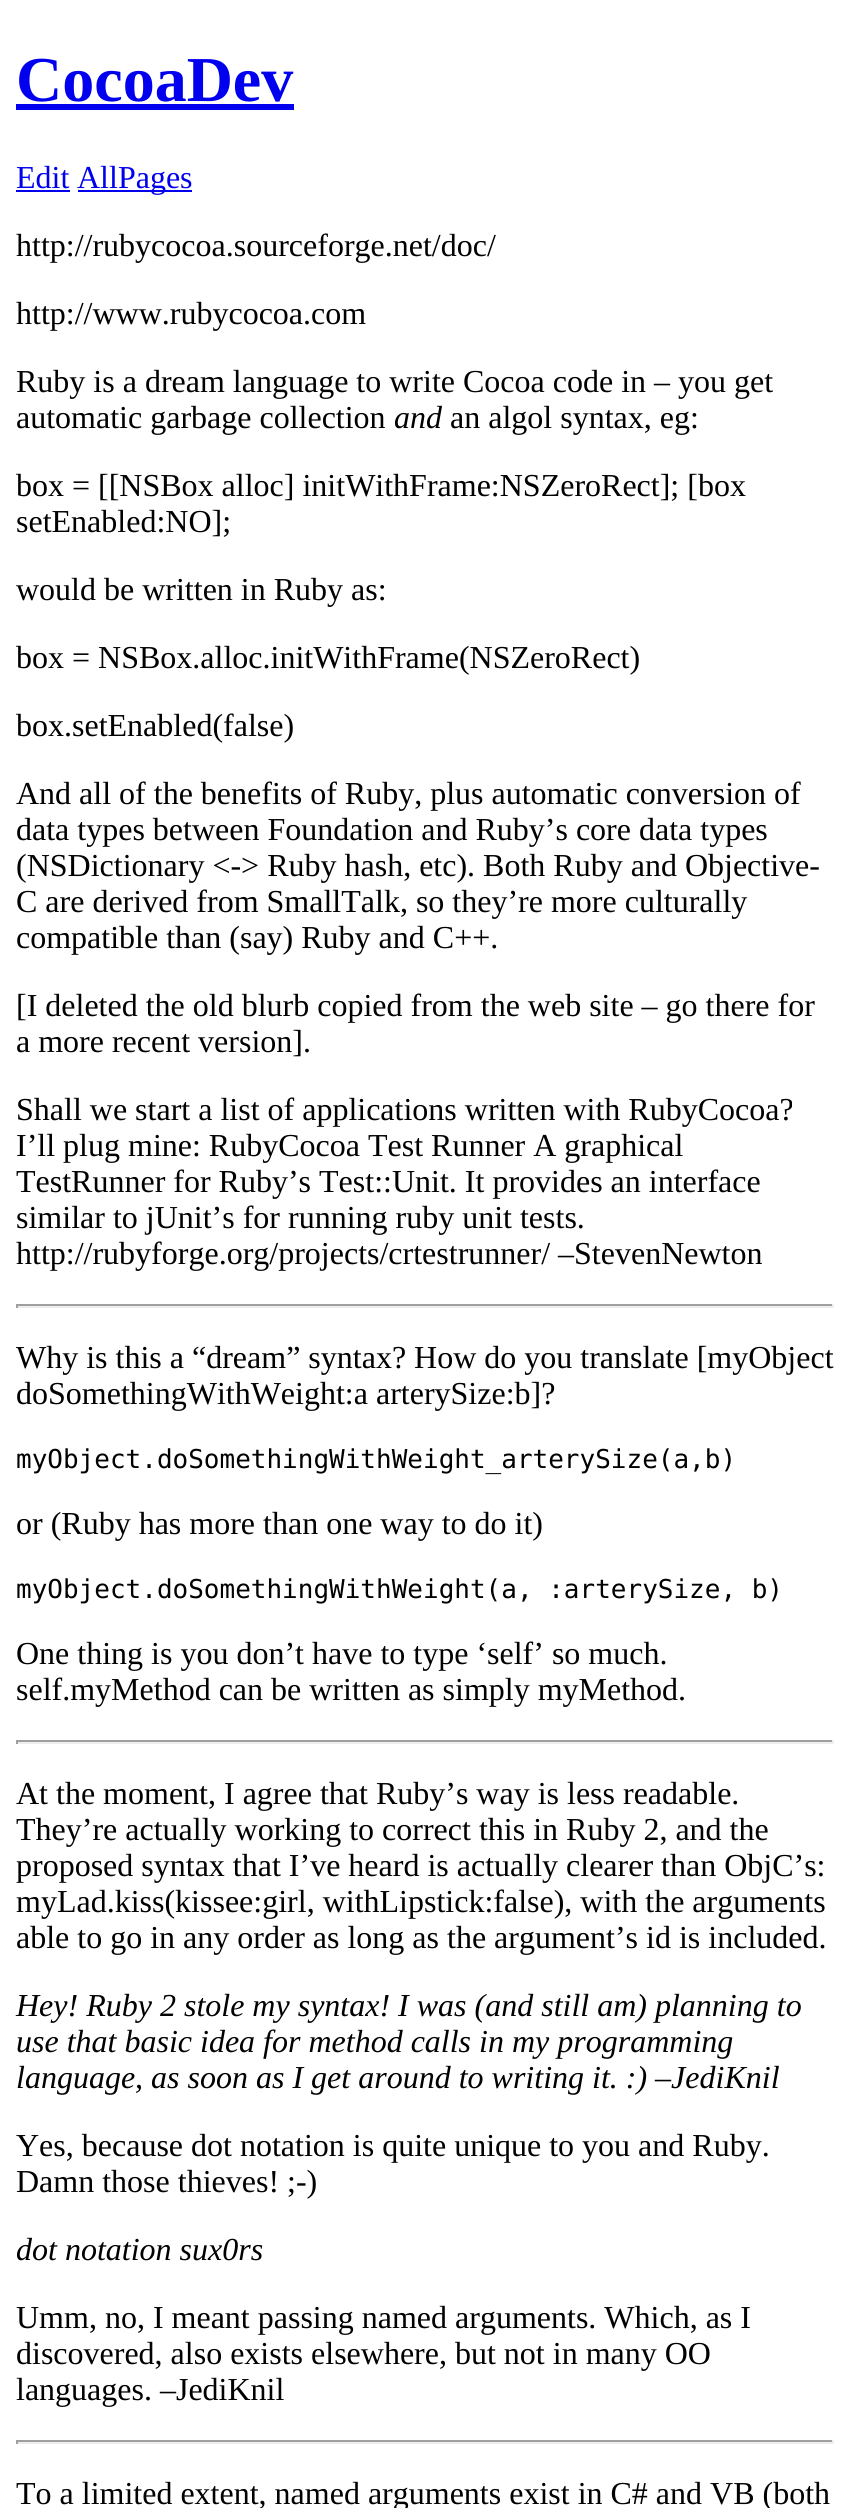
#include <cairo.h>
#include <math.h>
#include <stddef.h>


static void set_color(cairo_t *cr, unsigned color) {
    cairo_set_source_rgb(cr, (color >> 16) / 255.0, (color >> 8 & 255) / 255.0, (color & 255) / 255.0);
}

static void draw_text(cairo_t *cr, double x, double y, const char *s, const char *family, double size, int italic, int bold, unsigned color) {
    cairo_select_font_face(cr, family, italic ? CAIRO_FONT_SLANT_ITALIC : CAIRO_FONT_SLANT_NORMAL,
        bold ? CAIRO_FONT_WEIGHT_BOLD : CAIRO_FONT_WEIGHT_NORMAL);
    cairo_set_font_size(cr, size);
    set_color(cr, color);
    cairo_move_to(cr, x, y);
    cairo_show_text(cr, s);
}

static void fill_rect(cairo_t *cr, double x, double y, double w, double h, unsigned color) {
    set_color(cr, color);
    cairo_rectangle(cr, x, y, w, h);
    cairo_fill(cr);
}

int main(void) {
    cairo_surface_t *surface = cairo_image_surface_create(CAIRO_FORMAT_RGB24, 850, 2508);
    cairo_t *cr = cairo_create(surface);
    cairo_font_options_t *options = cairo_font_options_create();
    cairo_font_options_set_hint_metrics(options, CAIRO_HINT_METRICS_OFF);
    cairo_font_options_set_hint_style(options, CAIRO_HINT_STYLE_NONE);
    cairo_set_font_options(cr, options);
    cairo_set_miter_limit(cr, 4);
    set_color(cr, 0xFFFFFF);
    cairo_paint(cr);
    draw_text(cr, 16, 101, "CocoaDev", "Liberation Serif", 64, 0, 1, 0x0000EE);
    fill_rect(cr, 16, 104, 278, 6, 0x0000EE);
    draw_text(cr, 16, 188, "Edit", "Liberation Serif", 32, 0, 0, 0x0000EE);
    fill_rect(cr, 16, 190, 54, 2, 0x0000EE);
    fill_rect(cr, 78, 190, 114, 2, 0x0000EE);
    draw_text(cr, 77, 188, "AllPages", "Liberation Serif", 32, 0, 0, 0x0000EE);
    draw_text(cr, 16, 256, "http://rubycocoa.sourceforge.net/doc/", "Liberation Serif", 32, 0, 0, 0x000000);
    draw_text(cr, 16, 324, "http://www.rubycocoa.com", "Liberation Serif", 32, 0, 0, 0x000000);
    draw_text(cr, 16, 392, "Ruby is a dream language to write Cocoa code in – you get", "Liberation Serif", 32, 0, 0, 0x000000);
    draw_text(cr, 16, 428, "automatic garbage collection", "Liberation Serif", 32, 0, 0, 0x000000);
    draw_text(cr, 394, 428, "and", "Liberation Serif", 32, 1, 0, 0x000000);
    draw_text(cr, 450, 428, "an algol syntax, eg:", "Liberation Serif", 32, 0, 0, 0x000000);
    draw_text(cr, 16, 496, "box = [[NSBox alloc] initWithFrame:NSZeroRect]; [box", "Liberation Serif", 32, 0, 0, 0x000000);
    draw_text(cr, 16, 532, "setEnabled:NO];", "Liberation Serif", 32, 0, 0, 0x000000);
    draw_text(cr, 16, 600, "would be written in Ruby as:", "Liberation Serif", 32, 0, 0, 0x000000);
    draw_text(cr, 16, 668, "box = NSBox.alloc.initWithFrame(NSZeroRect)", "Liberation Serif", 32, 0, 0, 0x000000);
    draw_text(cr, 16, 736, "box.setEnabled(false)", "Liberation Serif", 32, 0, 0, 0x000000);
    draw_text(cr, 16, 804, "And all of the benefits of Ruby, plus automatic conversion of", "Liberation Serif", 32, 0, 0, 0x000000);
    draw_text(cr, 16, 840, "data types between Foundation and Ruby’s core data types", "Liberation Serif", 32, 0, 0, 0x000000);
    draw_text(cr, 16, 876, "(NSDictionary <-> Ruby hash, etc). Both Ruby and Objective-", "Liberation Serif", 32, 0, 0, 0x000000);
    draw_text(cr, 16, 912, "C are derived from SmallTalk, so they’re more culturally", "Liberation Serif", 32, 0, 0, 0x000000);
    draw_text(cr, 16, 948, "compatible than (say) Ruby and C++.", "Liberation Serif", 32, 0, 0, 0x000000);
    draw_text(cr, 16, 1016, "[I deleted the old blurb copied from the web site – go there for", "Liberation Serif", 32, 0, 0, 0x000000);
    draw_text(cr, 16, 1052, "a more recent version].", "Liberation Serif", 32, 0, 0, 0x000000);
    draw_text(cr, 16, 1120, "Shall we start a list of applications written with RubyCocoa?", "Liberation Serif", 32, 0, 0, 0x000000);
    draw_text(cr, 16, 1156, "I’ll plug mine: RubyCocoa Test Runner A graphical", "Liberation Serif", 32, 0, 0, 0x000000);
    draw_text(cr, 16, 1192, "TestRunner for Ruby’s Test::Unit. It provides an interface", "Liberation Serif", 32, 0, 0, 0x000000);
    draw_text(cr, 16, 1228, "similar to jUnit’s for running ruby unit tests.", "Liberation Serif", 32, 0, 0, 0x000000);
    draw_text(cr, 16, 1264, "http://rubyforge.org/projects/crtestrunner/ –StevenNewton", "Liberation Serif", 32, 0, 0, 0x000000);
    fill_rect(cr, 16, 1304, 818, 2, 0x9F9F9F);
    fill_rect(cr, 832, 1304, 2, 4, 0xEEEEEE);
    fill_rect(cr, 16, 1306, 818, 2, 0xEEEEEE);
    fill_rect(cr, 16, 1304, 2, 4, 0x9F9F9F);
    draw_text(cr, 16, 1368, "Why is this a “dream” syntax? How do you translate [myObject", "Liberation Serif", 32, 0, 0, 0x000000);
    draw_text(cr, 16, 1404, "doSomethingWithWeight:a arterySize:b]?", "Liberation Serif", 32, 0, 0, 0x000000);
    draw_text(cr, 16, 1468, "myObject.doSomethingWithWeight_arterySize(a,b)", "DejaVu Sans Mono", 26, 0, 0, 0x000000);
    draw_text(cr, 16, 1534, "or (Ruby has more than one way to do it)", "Liberation Serif", 32, 0, 0, 0x000000);
    draw_text(cr, 16, 1598, "myObject.doSomethingWithWeight(a, :arterySize, b)", "DejaVu Sans Mono", 26, 0, 0, 0x000000);
    draw_text(cr, 16, 1664, "One thing is you don’t have to type ‘self’ so much.", "Liberation Serif", 32, 0, 0, 0x000000);
    draw_text(cr, 16, 1700, "self.myMethod can be written as simply myMethod.", "Liberation Serif", 32, 0, 0, 0x000000);
    fill_rect(cr, 16, 1740, 818, 2, 0x9F9F9F);
    fill_rect(cr, 832, 1740, 2, 4, 0xEEEEEE);
    fill_rect(cr, 16, 1742, 818, 2, 0xEEEEEE);
    fill_rect(cr, 16, 1740, 2, 4, 0x9F9F9F);
    draw_text(cr, 16, 1804, "At the moment, I agree that Ruby’s way is less readable.", "Liberation Serif", 32, 0, 0, 0x000000);
    draw_text(cr, 16, 1840, "They’re actually working to correct this in Ruby 2, and the", "Liberation Serif", 32, 0, 0, 0x000000);
    draw_text(cr, 16, 1876, "proposed syntax that I’ve heard is actually clearer than ObjC’s:", "Liberation Serif", 32, 0, 0, 0x000000);
    draw_text(cr, 16, 1912, "myLad.kiss(kissee:girl, withLipstick:false), with the arguments", "Liberation Serif", 32, 0, 0, 0x000000);
    draw_text(cr, 16, 1948, "able to go in any order as long as the argument’s id is included.", "Liberation Serif", 32, 0, 0, 0x000000);
    draw_text(cr, 16, 2016, "Hey! Ruby 2 stole my syntax! I was (and still am) planning to", "Liberation Serif", 32, 1, 0, 0x000000);
    draw_text(cr, 16, 2052, "use that basic idea for method calls in my programming", "Liberation Serif", 32, 1, 0, 0x000000);
    draw_text(cr, 16, 2088, "language, as soon as I get around to writing it. :) –JediKnil", "Liberation Serif", 32, 1, 0, 0x000000);
    draw_text(cr, 16, 2156, "Yes, because dot notation is quite unique to you and Ruby.", "Liberation Serif", 32, 0, 0, 0x000000);
    draw_text(cr, 16, 2192, "Damn those thieves! ;-)", "Liberation Serif", 32, 0, 0, 0x000000);
    draw_text(cr, 16, 2260, "dot notation sux0rs", "Liberation Serif", 32, 1, 0, 0x000000);
    draw_text(cr, 16, 2328, "Umm, no, I meant passing named arguments. Which, as I", "Liberation Serif", 32, 0, 0, 0x000000);
    draw_text(cr, 16, 2364, "discovered, also exists elsewhere, but not in many OO", "Liberation Serif", 32, 0, 0, 0x000000);
    draw_text(cr, 16, 2400, "languages. –JediKnil", "Liberation Serif", 32, 0, 0, 0x000000);
    fill_rect(cr, 16, 2440, 818, 2, 0x9F9F9F);
    fill_rect(cr, 832, 2440, 2, 4, 0xEEEEEE);
    fill_rect(cr, 16, 2442, 818, 2, 0xEEEEEE);
    fill_rect(cr, 16, 2440, 2, 4, 0x9F9F9F);
    draw_text(cr, 16, 2504, "To a limited extent, named arguments exist in C# and VB (both", "Liberation Serif", 32, 0, 0, 0x000000);
    cairo_surface_write_to_png(surface, "output.png");
    cairo_font_options_destroy(options);
    cairo_destroy(cr);
    cairo_surface_destroy(surface);
    return 0;
}
